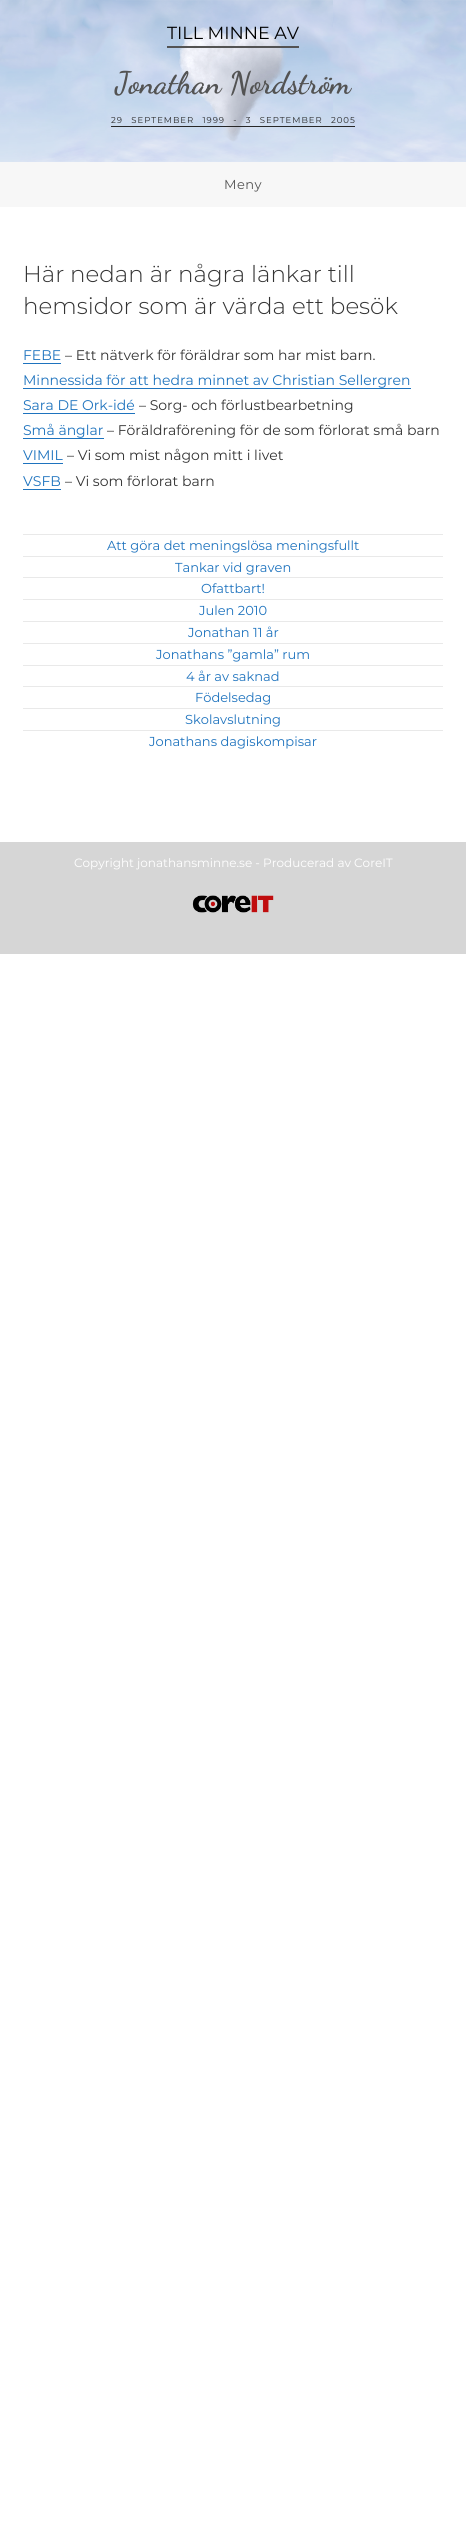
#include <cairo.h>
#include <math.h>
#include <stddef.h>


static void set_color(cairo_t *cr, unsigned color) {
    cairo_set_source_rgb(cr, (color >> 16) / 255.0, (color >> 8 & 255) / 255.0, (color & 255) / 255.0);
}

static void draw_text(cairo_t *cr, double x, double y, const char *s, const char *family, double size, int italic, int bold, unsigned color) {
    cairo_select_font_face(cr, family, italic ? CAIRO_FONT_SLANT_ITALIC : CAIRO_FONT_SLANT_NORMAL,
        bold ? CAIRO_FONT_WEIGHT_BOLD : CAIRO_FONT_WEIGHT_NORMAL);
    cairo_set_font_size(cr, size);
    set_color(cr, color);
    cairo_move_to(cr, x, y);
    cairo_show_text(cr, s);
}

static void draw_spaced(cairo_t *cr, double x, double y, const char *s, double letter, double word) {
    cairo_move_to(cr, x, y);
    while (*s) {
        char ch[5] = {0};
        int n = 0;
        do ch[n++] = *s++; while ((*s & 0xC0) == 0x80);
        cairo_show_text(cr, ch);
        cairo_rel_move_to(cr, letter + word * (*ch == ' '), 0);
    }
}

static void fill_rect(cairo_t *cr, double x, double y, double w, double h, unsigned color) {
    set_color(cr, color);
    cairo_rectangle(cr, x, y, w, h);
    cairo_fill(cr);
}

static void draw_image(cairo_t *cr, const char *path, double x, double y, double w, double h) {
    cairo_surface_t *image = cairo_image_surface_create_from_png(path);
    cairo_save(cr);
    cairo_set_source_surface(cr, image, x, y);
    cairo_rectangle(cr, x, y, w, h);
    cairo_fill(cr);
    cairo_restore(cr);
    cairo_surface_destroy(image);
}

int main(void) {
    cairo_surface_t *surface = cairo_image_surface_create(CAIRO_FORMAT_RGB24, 466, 2521);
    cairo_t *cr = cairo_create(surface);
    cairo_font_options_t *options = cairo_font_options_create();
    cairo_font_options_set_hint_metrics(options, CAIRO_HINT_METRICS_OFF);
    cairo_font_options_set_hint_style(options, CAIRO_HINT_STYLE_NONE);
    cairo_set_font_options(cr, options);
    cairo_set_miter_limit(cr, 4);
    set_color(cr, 0xFFFFFF);
    cairo_paint(cr);
    draw_image(cr, "assets/img1.png", 0, 0, 466, 162);
    fill_rect(cr, 167, 46, 132, 2, 0x535353);
    draw_text(cr, 167, 39, "TILL MINNE AV", "Montserrat", 17.5, 0, 0, 0x000000);
    draw_text(cr, 115, 93, "Jonathan Nordström", "Dancing Script", 31, 0, 1, 0x535353);
    fill_rect(cr, 111, 126, 244, 1, 0x282828);
    cairo_select_font_face(cr, "Montserrat", CAIRO_FONT_SLANT_NORMAL, CAIRO_FONT_WEIGHT_NORMAL);
    cairo_set_font_size(cr, 8.5);
    draw_spaced(cr, 111, 123, "29 SEPTEMBER 1999 - 3 SEPTEMBER 2005", 1, 5);
    fill_rect(cr, 0, 162, 466, 45, 0xF7F7F7);
    cairo_set_font_size(cr, 13);
    set_color(cr, 0x535353);
    draw_spaced(cr, 224, 189, "Meny", 0.5, 0);
    draw_text(cr, 23, 282, "Här nedan är några länkar till", "Montserrat Light", 23, 0, 0, 0x333333);
    draw_text(cr, 23, 314, "hemsidor som är värda ett besök", "Montserrat Light", 23, 0, 0, 0x333333);
    draw_text(cr, 23, 360, "FEBE", "Montserrat", 14, 0, 0, 0x1E73BE);
    fill_rect(cr, 23, 363, 38, 1, 0x1E73BE);
    draw_text(cr, 65, 360, "– Ett nätverk för föräldrar som har mist barn.", "Montserrat", 14, 0, 0, 0x333333);
    draw_text(cr, 23, 385, "Minnessida för att hedra minnet av Christian Sellergren", "Montserrat", 14, 0, 0, 0x1E73BE);
    fill_rect(cr, 23, 388, 388, 1, 0x1E73BE);
    draw_text(cr, 23, 410, "Sara DE Ork-idé", "Montserrat", 14, 0, 0, 0x1E73BE);
    fill_rect(cr, 23, 413, 112, 1, 0x1E73BE);
    draw_text(cr, 139, 410, "– Sorg- och förlustbearbetning", "Montserrat", 14, 0, 0, 0x333333);
    draw_text(cr, 23, 435, "Små änglar", "Montserrat", 14, 0, 0, 0x1E73BE);
    fill_rect(cr, 23, 438, 81, 1, 0x1E73BE);
    draw_text(cr, 107, 435, "– Föräldraförening för de som förlorat små barn", "Montserrat", 14, 0, 0, 0x333333);
    draw_text(cr, 23, 460, "VIMIL", "Montserrat", 14, 0, 0, 0x1E73BE);
    fill_rect(cr, 23, 463, 40, 1, 0x1E73BE);
    draw_text(cr, 67, 460, "– Vi som mist någon mitt i livet", "Montserrat", 14, 0, 0, 0x333333);
    draw_text(cr, 23, 486, "VSFB", "Montserrat", 14, 0, 0, 0x1E73BE);
    fill_rect(cr, 23, 489, 38, 1, 0x1E73BE);
    draw_text(cr, 65, 486, "– Vi som förlorat barn", "Montserrat", 14, 0, 0, 0x333333);
    fill_rect(cr, 23, 534, 420, 1, 0xE9E9E9);
    draw_text(cr, 107, 550, "Att göra det meningslösa meningsfullt", "Montserrat", 13, 0, 0, 0x1E73BE);
    fill_rect(cr, 23, 556, 420, 1, 0xE9E9E9);
    draw_text(cr, 175, 572, "Tankar vid graven", "Montserrat", 13, 0, 0, 0x1E73BE);
    fill_rect(cr, 23, 577, 420, 1, 0xE9E9E9);
    draw_text(cr, 201, 593, "Ofattbart!", "Montserrat", 13, 0, 0, 0x1E73BE);
    fill_rect(cr, 23, 599, 420, 1, 0xE9E9E9);
    draw_text(cr, 199, 615, "Julen 2010", "Montserrat", 13, 0, 0, 0x1E73BE);
    fill_rect(cr, 23, 621, 420, 1, 0xE9E9E9);
    draw_text(cr, 188, 637, "Jonathan 11 år", "Montserrat", 13, 0, 0, 0x1E73BE);
    fill_rect(cr, 23, 643, 420, 1, 0xE9E9E9);
    draw_text(cr, 156, 659, "Jonathans ”gamla” rum", "Montserrat", 13, 0, 0, 0x1E73BE);
    fill_rect(cr, 23, 665, 420, 1, 0xE9E9E9);
    draw_text(cr, 186, 681, "4 år av saknad", "Montserrat", 13, 0, 0, 0x1E73BE);
    fill_rect(cr, 23, 686, 420, 1, 0xE9E9E9);
    draw_text(cr, 195, 702, "Födelsedag", "Montserrat", 13, 0, 0, 0x1E73BE);
    fill_rect(cr, 23, 708, 420, 1, 0xE9E9E9);
    draw_text(cr, 185, 724, "Skolavslutning", "Montserrat", 13, 0, 0, 0x1E73BE);
    fill_rect(cr, 23, 730, 420, 1, 0xE9E9E9);
    draw_text(cr, 149, 746, "Jonathans dagiskompisar", "Montserrat", 13, 0, 0, 0x1E73BE);
    fill_rect(cr, 0, 842, 466, 112, 0xD6D6D6);
    draw_text(cr, 74, 867, "Copyright jonathansminne.se - Producerad av CoreIT", "Montserrat", 12, 0, 0, 0xFFFFFF);
    draw_image(cr, "assets/img2.png", 192, 895, 82, 18);
    cairo_surface_write_to_png(surface, "output.png");
    cairo_font_options_destroy(options);
    cairo_destroy(cr);
    cairo_surface_destroy(surface);
    return 0;
}
